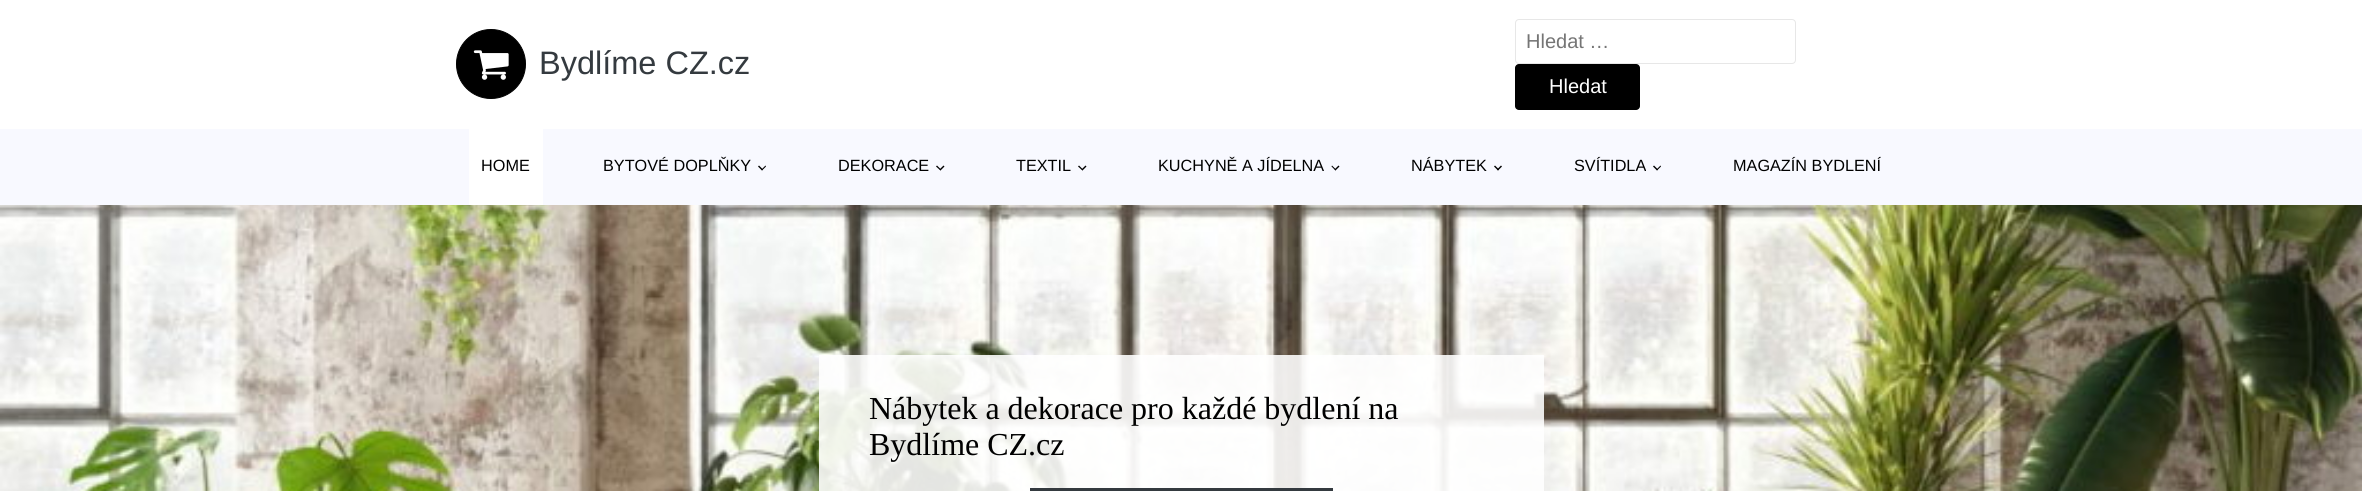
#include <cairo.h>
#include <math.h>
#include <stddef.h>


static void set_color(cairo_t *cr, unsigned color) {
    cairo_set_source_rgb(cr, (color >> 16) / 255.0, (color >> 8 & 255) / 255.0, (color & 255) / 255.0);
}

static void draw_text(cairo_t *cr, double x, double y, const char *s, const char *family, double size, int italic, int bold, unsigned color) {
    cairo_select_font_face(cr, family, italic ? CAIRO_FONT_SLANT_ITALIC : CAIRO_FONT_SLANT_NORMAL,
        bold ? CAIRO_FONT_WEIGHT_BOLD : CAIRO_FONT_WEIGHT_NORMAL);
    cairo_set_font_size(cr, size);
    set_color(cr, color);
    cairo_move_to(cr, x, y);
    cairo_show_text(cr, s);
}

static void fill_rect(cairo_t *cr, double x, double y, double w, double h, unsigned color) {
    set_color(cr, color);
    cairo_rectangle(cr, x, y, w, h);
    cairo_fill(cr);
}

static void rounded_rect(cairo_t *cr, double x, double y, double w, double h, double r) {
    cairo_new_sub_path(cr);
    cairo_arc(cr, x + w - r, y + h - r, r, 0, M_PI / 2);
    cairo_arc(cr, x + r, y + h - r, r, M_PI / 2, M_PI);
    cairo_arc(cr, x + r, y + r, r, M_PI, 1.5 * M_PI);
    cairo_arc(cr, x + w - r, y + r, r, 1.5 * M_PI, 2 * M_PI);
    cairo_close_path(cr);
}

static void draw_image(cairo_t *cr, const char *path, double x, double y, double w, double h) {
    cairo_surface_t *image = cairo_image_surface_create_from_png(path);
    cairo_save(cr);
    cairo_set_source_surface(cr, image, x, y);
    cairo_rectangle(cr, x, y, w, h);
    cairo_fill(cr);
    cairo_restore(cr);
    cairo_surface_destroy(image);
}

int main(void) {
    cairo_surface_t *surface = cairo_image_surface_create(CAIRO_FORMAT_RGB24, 2362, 491);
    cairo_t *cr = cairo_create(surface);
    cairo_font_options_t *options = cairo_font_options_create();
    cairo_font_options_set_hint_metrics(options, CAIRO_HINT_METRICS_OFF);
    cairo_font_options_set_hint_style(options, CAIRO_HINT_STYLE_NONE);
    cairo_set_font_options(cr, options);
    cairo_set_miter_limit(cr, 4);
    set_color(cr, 0xFFFFFF);
    cairo_paint(cr);
    set_color(cr, 0x000000);
    cairo_arc(cr, 491, 64, 34.5, 0, 2 * M_PI);
    cairo_fill_preserve(cr);
    cairo_set_line_width(cr, 1);
    cairo_stroke(cr);
    draw_image(cr, "assets/img1.png", 473, 50, 36, 30);
    draw_text(cr, 539, 74, "Bydlíme CZ.cz", "Liberation Sans", 32.5, 0, 0, 0x343A3F);
    rounded_rect(cr, 1515.5, 19.5, 280, 44, 3.5);
    set_color(cr, 0xE7E7E7);
    cairo_stroke(cr);
    draw_text(cr, 1526, 48, "Hledat …", "Liberation Sans", 20, 0, 0, 0x757575);
    set_color(cr, 0x000000);
    rounded_rect(cr, 1515, 64, 125, 46, 4);
    cairo_fill(cr);
    draw_text(cr, 1549, 93, "Hledat", "Liberation Sans", 20, 0, 0, 0xFFFFFF);
    fill_rect(cr, 0, 129, 2362, 76, 0xF8F9FF);
    fill_rect(cr, 469, 129, 74, 76, 0xFFFFFF);
    draw_text(cr, 481, 171, "HOME", "Liberation Sans", 16.25, 0, 0, 0x000000);
    draw_text(cr, 603, 171, "BYTOVÉ DOPLŇKY", "Liberation Sans", 16.25, 0, 0, 0x000000);
    cairo_new_path(cr);
    cairo_move_to(cr, 766, 166.5);
    cairo_line_to(cr, 762, 170.5);
    cairo_line_to(cr, 761.5, 169.5);
    cairo_line_to(cr, 765.5, 165.5);
    cairo_close_path(cr);
    cairo_fill(cr);
    cairo_new_path(cr);
    cairo_move_to(cr, 763, 169.5);
    cairo_line_to(cr, 762, 170.5);
    cairo_line_to(cr, 758, 166.5);
    cairo_line_to(cr, 759, 165.5);
    cairo_close_path(cr);
    cairo_fill(cr);
    draw_text(cr, 838, 171, "DEKORACE", "Liberation Sans", 16.25, 0, 0, 0x000000);
    cairo_new_path(cr);
    cairo_move_to(cr, 944.5, 166.5);
    cairo_line_to(cr, 940.5, 170.5);
    cairo_line_to(cr, 939.5, 169.5);
    cairo_line_to(cr, 943.5, 165.5);
    cairo_close_path(cr);
    cairo_fill(cr);
    cairo_new_path(cr);
    cairo_move_to(cr, 941, 169.5);
    cairo_line_to(cr, 940.5, 170.5);
    cairo_line_to(cr, 936, 166.5);
    cairo_line_to(cr, 937, 165.5);
    cairo_close_path(cr);
    cairo_fill(cr);
    draw_text(cr, 1016, 171, "TEXTIL", "Liberation Sans", 16.25, 0, 0, 0x000000);
    cairo_new_path(cr);
    cairo_move_to(cr, 1086.5, 166.5);
    cairo_line_to(cr, 1082.5, 170.5);
    cairo_line_to(cr, 1081.5, 169.5);
    cairo_line_to(cr, 1085.5, 165.5);
    cairo_close_path(cr);
    cairo_fill(cr);
    cairo_new_path(cr);
    cairo_move_to(cr, 1083, 169.5);
    cairo_line_to(cr, 1082.5, 170.5);
    cairo_line_to(cr, 1078, 166.5);
    cairo_line_to(cr, 1079, 165.5);
    cairo_close_path(cr);
    cairo_fill(cr);
    draw_text(cr, 1158, 171, "KUCHYNĚ A JÍDELNA", "Liberation Sans", 16.25, 0, 0, 0x000000);
    cairo_new_path(cr);
    cairo_move_to(cr, 1339.5, 166.5);
    cairo_line_to(cr, 1335.5, 170.5);
    cairo_line_to(cr, 1334.5, 169.5);
    cairo_line_to(cr, 1338.5, 165.5);
    cairo_close_path(cr);
    cairo_fill(cr);
    cairo_new_path(cr);
    cairo_move_to(cr, 1336, 169.5);
    cairo_line_to(cr, 1335.5, 170.5);
    cairo_line_to(cr, 1331.5, 166.5);
    cairo_line_to(cr, 1332, 165.5);
    cairo_close_path(cr);
    cairo_fill(cr);
    draw_text(cr, 1411, 171, "NÁBYTEK", "Liberation Sans", 16.25, 0, 0, 0x000000);
    cairo_new_path(cr);
    cairo_move_to(cr, 1502, 166.5);
    cairo_line_to(cr, 1498, 170.5);
    cairo_line_to(cr, 1497, 169.5);
    cairo_line_to(cr, 1501, 165.5);
    cairo_close_path(cr);
    cairo_fill(cr);
    cairo_new_path(cr);
    cairo_move_to(cr, 1499, 169.5);
    cairo_line_to(cr, 1498, 170.5);
    cairo_line_to(cr, 1494, 166.5);
    cairo_line_to(cr, 1495, 165.5);
    cairo_close_path(cr);
    cairo_fill(cr);
    draw_text(cr, 1574, 171, "SVÍTIDLA", "Liberation Sans", 16.25, 0, 0, 0x000000);
    cairo_new_path(cr);
    cairo_move_to(cr, 1661, 166.5);
    cairo_line_to(cr, 1657, 170.5);
    cairo_line_to(cr, 1656.5, 169.5);
    cairo_line_to(cr, 1660.5, 165.5);
    cairo_close_path(cr);
    cairo_fill(cr);
    cairo_new_path(cr);
    cairo_move_to(cr, 1658, 169.5);
    cairo_line_to(cr, 1657, 170.5);
    cairo_line_to(cr, 1653, 166.5);
    cairo_line_to(cr, 1654, 165.5);
    cairo_close_path(cr);
    cairo_fill(cr);
    draw_text(cr, 1733, 171, "MAGAZÍN BYDLENÍ", "Liberation Sans", 16.25, 0, 0, 0x000000);
    draw_image(cr, "assets/img2.png", 0, 205, 2362, 286);
    cairo_set_source_rgba(cr, 1, 1, 1, 0.88);
    cairo_rectangle(cr, 819, 355, 725, 136);
    cairo_fill(cr);
    draw_text(cr, 869, 419, "Nábytek a dekorace pro každé bydlení na", "Liberation Serif", 32, 0, 0, 0x000000);
    draw_text(cr, 869, 455, "Bydlíme CZ.cz", "Liberation Serif", 32, 0, 0, 0x000000);
    cairo_rectangle(cr, 1031.5, 489.5, 300, 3);
    set_color(cr, 0x343A3F);
    cairo_set_line_width(cr, 3);
    cairo_stroke(cr);
    cairo_surface_write_to_png(surface, "output.png");
    cairo_font_options_destroy(options);
    cairo_destroy(cr);
    cairo_surface_destroy(surface);
    return 0;
}
